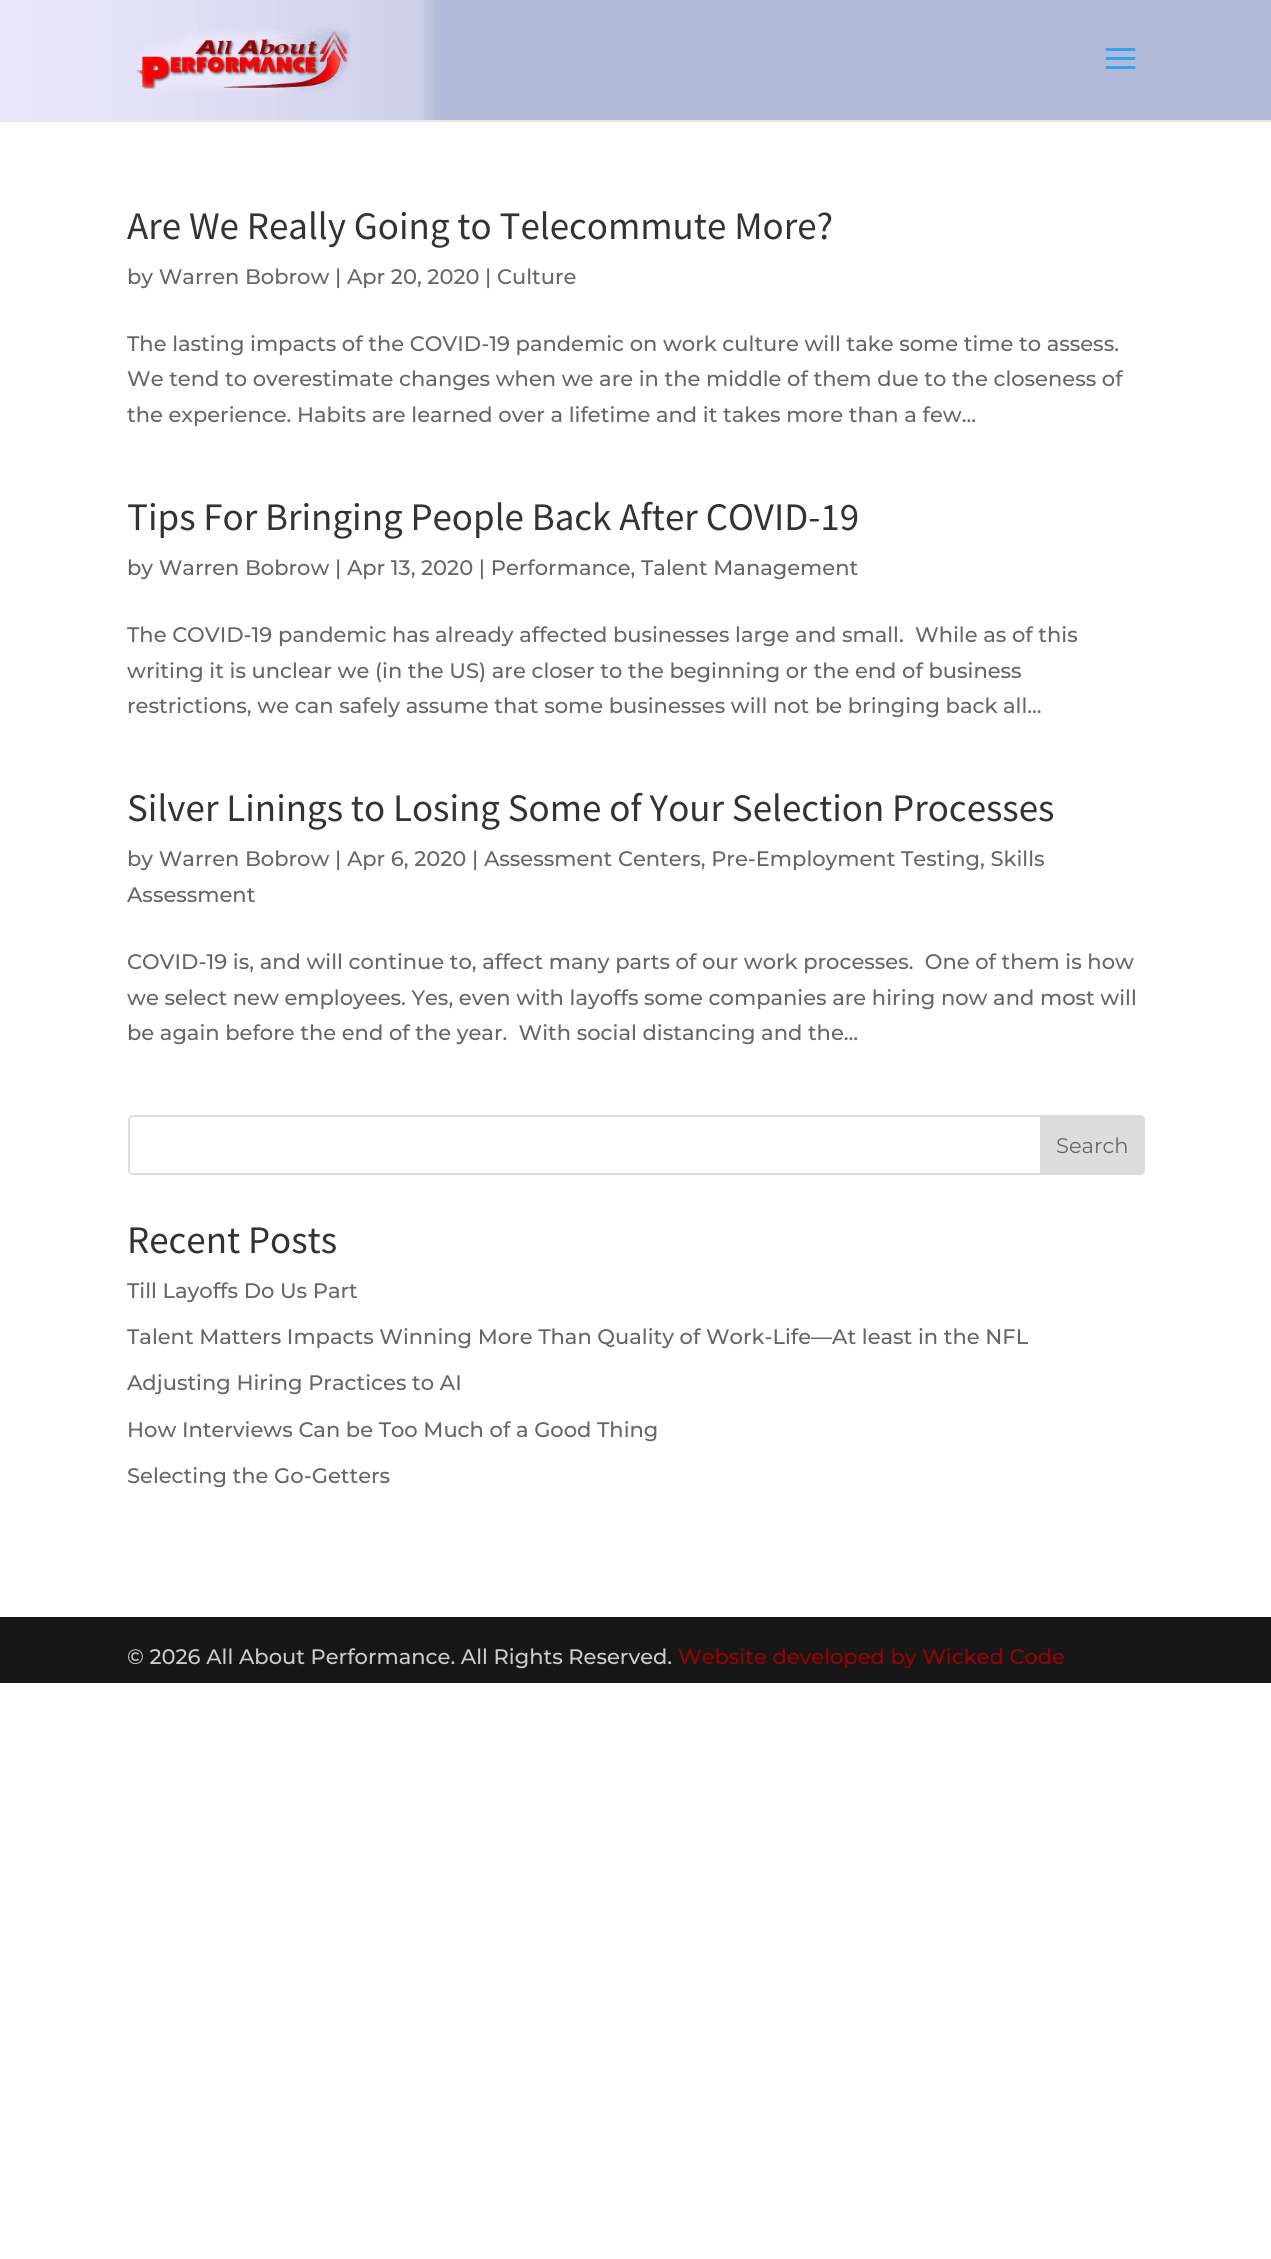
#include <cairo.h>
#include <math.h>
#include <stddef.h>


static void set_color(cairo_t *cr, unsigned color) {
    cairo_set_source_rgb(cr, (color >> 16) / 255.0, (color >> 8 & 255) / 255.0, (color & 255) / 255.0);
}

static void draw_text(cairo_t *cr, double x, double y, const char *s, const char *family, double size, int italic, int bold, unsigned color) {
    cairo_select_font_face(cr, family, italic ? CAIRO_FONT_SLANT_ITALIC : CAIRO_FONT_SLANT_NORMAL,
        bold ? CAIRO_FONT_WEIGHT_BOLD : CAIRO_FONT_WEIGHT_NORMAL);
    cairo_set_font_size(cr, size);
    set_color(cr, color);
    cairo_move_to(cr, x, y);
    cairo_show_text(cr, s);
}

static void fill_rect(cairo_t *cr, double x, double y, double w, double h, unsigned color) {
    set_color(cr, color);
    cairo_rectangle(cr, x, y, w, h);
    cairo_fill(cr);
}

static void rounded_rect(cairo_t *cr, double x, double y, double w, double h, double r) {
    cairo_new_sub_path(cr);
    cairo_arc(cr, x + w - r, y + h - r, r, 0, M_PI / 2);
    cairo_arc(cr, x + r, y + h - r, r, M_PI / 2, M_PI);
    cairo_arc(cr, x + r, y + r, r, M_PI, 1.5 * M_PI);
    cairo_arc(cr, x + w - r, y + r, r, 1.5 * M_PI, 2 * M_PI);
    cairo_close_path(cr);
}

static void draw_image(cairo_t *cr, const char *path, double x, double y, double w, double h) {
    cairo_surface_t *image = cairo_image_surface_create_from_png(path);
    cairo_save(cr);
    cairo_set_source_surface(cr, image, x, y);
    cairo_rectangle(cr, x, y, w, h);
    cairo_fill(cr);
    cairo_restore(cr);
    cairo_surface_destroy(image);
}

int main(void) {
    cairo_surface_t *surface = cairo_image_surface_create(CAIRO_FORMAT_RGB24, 1271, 2259);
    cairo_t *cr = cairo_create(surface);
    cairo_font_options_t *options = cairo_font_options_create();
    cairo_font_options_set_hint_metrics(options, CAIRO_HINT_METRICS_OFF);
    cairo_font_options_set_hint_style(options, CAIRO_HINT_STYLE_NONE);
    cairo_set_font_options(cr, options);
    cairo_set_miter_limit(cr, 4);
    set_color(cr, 0xFFFFFF);
    cairo_paint(cr);
    fill_rect(cr, 0, 120, 1271, 2, 0xE6E6E6);
    draw_image(cr, "assets/img1.png", 0, 0, 1271, 120);
    draw_image(cr, "assets/img2.png", 135, 27, 217, 66);
    draw_image(cr, "assets/img3.png", 1105, 48, 31, 21);
    draw_text(cr, 127, 239, "Are We Really Going to Telecommute More?", "Source Sans Pro", 39, 0, 0, 0x333333);
    draw_text(cr, 127, 284, "by Warren Bobrow | Apr 20, 2020 | Culture", "Montserrat Medium", 21, 0, 0, 0x666666);
    draw_text(cr, 127, 351, "The lasting impacts of the COVID-19 pandemic on work culture will take some time to assess.", "Montserrat Medium", 21, 0, 0, 0x666666);
    draw_text(cr, 127, 386, "We tend to overestimate changes when we are in the middle of them due to the closeness of", "Montserrat Medium", 21, 0, 0, 0x666666);
    draw_text(cr, 127, 422, "the experience. Habits are learned over a lifetime and it takes more than a few...", "Montserrat Medium", 21, 0, 0, 0x666666);
    draw_text(cr, 127, 530, "Tips For Bringing People Back After COVID-19", "Source Sans Pro", 39, 0, 0, 0x333333);
    draw_text(cr, 127, 575, "by Warren Bobrow | Apr 13, 2020 | Performance, Talent Management", "Montserrat Medium", 21, 0, 0, 0x666666);
    draw_text(cr, 127, 642, "The COVID-19 pandemic has already affected businesses large and small.  While as of this", "Montserrat Medium", 21, 0, 0, 0x666666);
    draw_text(cr, 127, 678, "writing it is unclear we (in the US) are closer to the beginning or the end of business", "Montserrat Medium", 21, 0, 0, 0x666666);
    draw_text(cr, 127, 713, "restrictions, we can safely assume that some businesses will not be bringing back all...", "Montserrat Medium", 21, 0, 0, 0x666666);
    draw_text(cr, 127, 821, "Silver Linings to Losing Some of Your Selection Processes", "Source Sans Pro", 39, 0, 0, 0x333333);
    draw_text(cr, 127, 866, "by Warren Bobrow | Apr 6, 2020 | Assessment Centers, Pre-Employment Testing, Skills", "Montserrat Medium", 21, 0, 0, 0x666666);
    draw_text(cr, 127, 902, "Assessment", "Montserrat Medium", 21, 0, 0, 0x666666);
    draw_text(cr, 127, 969, "COVID-19 is, and will continue to, affect many parts of our work processes.  One of them is how", "Montserrat Medium", 21, 0, 0, 0x666666);
    draw_text(cr, 127, 1005, "we select new employees. Yes, even with layoffs some companies are hiring now and most will", "Montserrat Medium", 21, 0, 0, 0x666666);
    draw_text(cr, 127, 1040, "be again before the end of the year.  With social distancing and the...", "Montserrat Medium", 21, 0, 0, 0x666666);
    rounded_rect(cr, 129, 1116, 1015, 58, 4);
    set_color(cr, 0xDDDDDD);
    cairo_stroke(cr);
    cairo_new_path(cr);
    cairo_move_to(cr, 1041, 1116);
    cairo_line_to(cr, 1140, 1116);
    cairo_curve_to(cr, 1142, 1116, 1144, 1118, 1144, 1120);
    cairo_line_to(cr, 1144, 1170);
    cairo_curve_to(cr, 1144, 1172, 1142, 1174, 1140, 1174);
    cairo_line_to(cr, 1041, 1174);
    cairo_close_path(cr);
    cairo_fill_preserve(cr);
    cairo_stroke(cr);
    draw_text(cr, 1056, 1153, "Search", "Montserrat", 21, 0, 0, 0x666666);
    draw_text(cr, 127, 1253, "Recent Posts", "Source Sans Pro", 39, 0, 0, 0x333333);
    draw_text(cr, 127, 1298, "Till Layoffs Do Us Part", "Montserrat Medium", 21, 0, 0, 0x666666);
    draw_text(cr, 127, 1344, "Talent Matters Impacts Winning More Than Quality of Work-Life—At least in the NFL", "Montserrat Medium", 21, 0, 0, 0x666666);
    draw_text(cr, 127, 1390, "Adjusting Hiring Practices to AI", "Montserrat Medium", 21, 0, 0, 0x666666);
    draw_text(cr, 127, 1437, "How Interviews Can be Too Much of a Good Thing", "Montserrat Medium", 21, 0, 0, 0x666666);
    draw_text(cr, 127, 1483, "Selecting the Go-Getters", "Montserrat Medium", 21, 0, 0, 0x666666);
    fill_rect(cr, 0, 1617, 1271, 66, 0x171717);
    draw_text(cr, 127, 1664, "© 2026 All About Performance. All Rights Reserved.", "Montserrat Medium", 21, 0, 0, 0xCCCCCC);
    draw_text(cr, 678, 1664, "Website developed by Wicked Code", "Montserrat Medium", 21, 0, 0, 0x980102);
    cairo_surface_write_to_png(surface, "output.png");
    cairo_font_options_destroy(options);
    cairo_destroy(cr);
    cairo_surface_destroy(surface);
    return 0;
}
